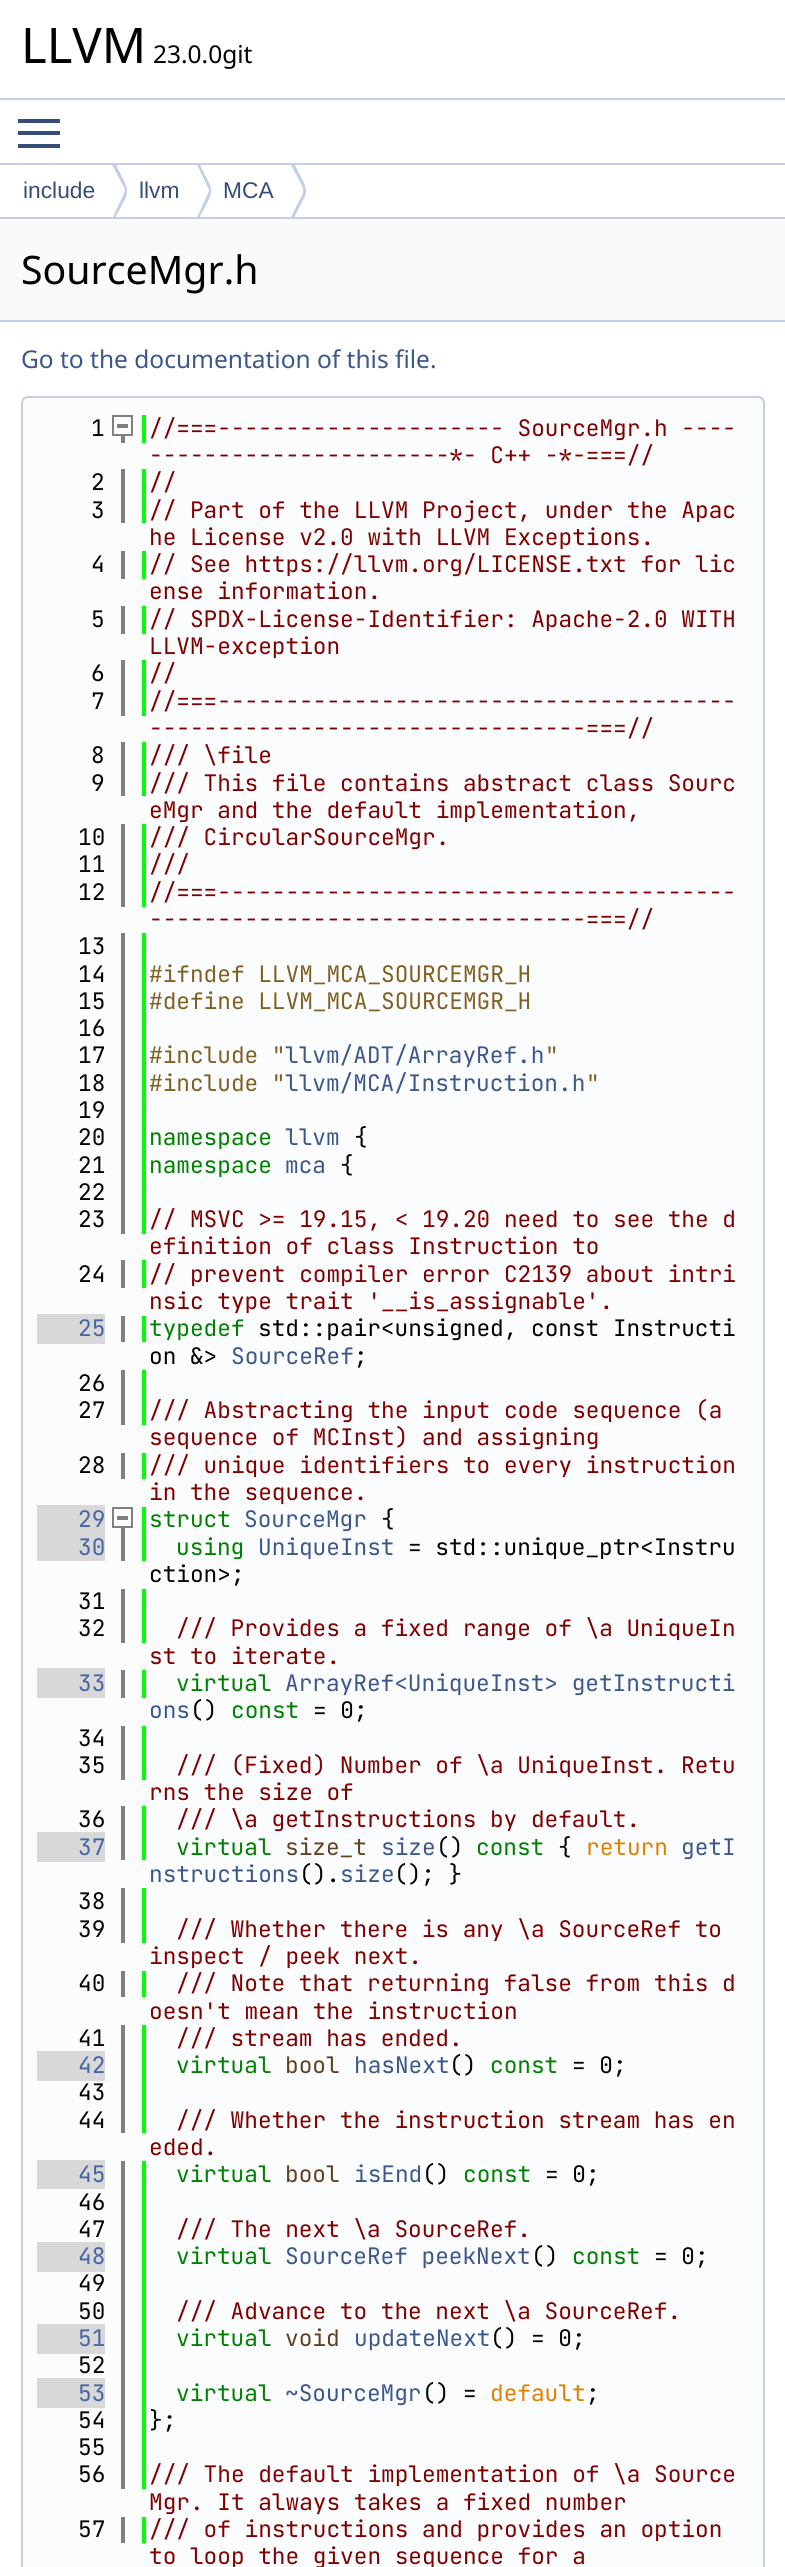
#include <cairo.h>
#include <math.h>
#include <stddef.h>


static void set_color(cairo_t *cr, unsigned color) {
    cairo_set_source_rgb(cr, (color >> 16) / 255.0, (color >> 8 & 255) / 255.0, (color & 255) / 255.0);
}

static void draw_text(cairo_t *cr, double x, double y, const char *s, const char *family, double size, int italic, int bold, unsigned color) {
    cairo_select_font_face(cr, family, italic ? CAIRO_FONT_SLANT_ITALIC : CAIRO_FONT_SLANT_NORMAL,
        bold ? CAIRO_FONT_WEIGHT_BOLD : CAIRO_FONT_WEIGHT_NORMAL);
    cairo_set_font_size(cr, size);
    set_color(cr, color);
    cairo_move_to(cr, x, y);
    cairo_show_text(cr, s);
}

static void fill_rect(cairo_t *cr, double x, double y, double w, double h, unsigned color) {
    set_color(cr, color);
    cairo_rectangle(cr, x, y, w, h);
    cairo_fill(cr);
}

static void rounded_rect(cairo_t *cr, double x, double y, double w, double h, double r) {
    cairo_new_sub_path(cr);
    cairo_arc(cr, x + w - r, y + h - r, r, 0, M_PI / 2);
    cairo_arc(cr, x + r, y + h - r, r, M_PI / 2, M_PI);
    cairo_arc(cr, x + r, y + r, r, M_PI, 1.5 * M_PI);
    cairo_arc(cr, x + w - r, y + r, r, 1.5 * M_PI, 2 * M_PI);
    cairo_close_path(cr);
}

int main(void) {
    cairo_surface_t *surface = cairo_image_surface_create(CAIRO_FORMAT_RGB24, 785, 2567);
    cairo_t *cr = cairo_create(surface);
    cairo_font_options_t *options = cairo_font_options_create();
    cairo_font_options_set_hint_metrics(options, CAIRO_HINT_METRICS_OFF);
    cairo_font_options_set_hint_style(options, CAIRO_HINT_STYLE_NONE);
    cairo_set_font_options(cr, options);
    cairo_set_miter_limit(cr, 4);
    set_color(cr, 0xFFFFFF);
    cairo_paint(cr);
    fill_rect(cr, 0, 98, 785, 2, 0xC4CFE5);
    draw_text(cr, 21, 63, "LLVM", "Noto Sans", 49, 0, 0, 0x000000);
    draw_text(cr, 153, 63, "23.0.0git", "Noto Sans", 24.5, 0, 0, 0x000000);
    fill_rect(cr, 18, 131, 42, 4, 0x364D7C);
    fill_rect(cr, 18, 119, 42, 4, 0x364D7C);
    fill_rect(cr, 18, 144, 42, 4, 0x364D7C);
    fill_rect(cr, 0, 163, 785, 2, 0xC4CFE5);
    fill_rect(cr, 0, 217, 785, 2, 0xC4CFE5);
    draw_text(cr, 23, 198, "include", "Liberation Sans", 22.75, 0, 0, 0x354C7B);
    cairo_save(cr);
    cairo_rectangle(cr, 0, 165, 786, 52);
    cairo_clip(cr);
    set_color(cr, 0xC4CFE5);
    cairo_new_path(cr);
    cairo_move_to(cr, 114, 161);
    cairo_line_to(cr, 112, 165);
    cairo_line_to(cr, 124, 188);
    cairo_curve_to(cr, 125, 190, 125, 192, 124, 193);
    cairo_line_to(cr, 113, 217);
    cairo_line_to(cr, 114, 220);
    cairo_curve_to(cr, 132, 186, 131, 196, 114, 161);
    cairo_close_path(cr);
    cairo_fill(cr);
    cairo_restore(cr);
    set_color(cr, 0xFFFFFF);
    cairo_new_path(cr);
    cairo_move_to(cr, 112, 165);
    cairo_line_to(cr, 124, 188);
    cairo_curve_to(cr, 125, 190, 125, 192, 124, 193);
    cairo_line_to(cr, 112, 217);
    cairo_curve_to(cr, 105, 203, 105, 179, 112, 165);
    cairo_close_path(cr);
    cairo_fill(cr);
    draw_text(cr, 139, 198, "llvm", "Liberation Sans", 22.75, 0, 0, 0x354C7B);
    cairo_save(cr);
    cairo_rectangle(cr, 0, 165, 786, 52);
    cairo_clip(cr);
    set_color(cr, 0xC4CFE5);
    cairo_new_path(cr);
    cairo_move_to(cr, 198, 161);
    cairo_line_to(cr, 195, 169);
    cairo_line_to(cr, 197, 165);
    cairo_line_to(cr, 208, 188);
    cairo_curve_to(cr, 209, 190, 209, 192, 208, 193);
    cairo_line_to(cr, 197, 217);
    cairo_line_to(cr, 198, 220);
    cairo_curve_to(cr, 216, 186, 215, 196, 198, 161);
    cairo_close_path(cr);
    cairo_fill(cr);
    cairo_restore(cr);
    set_color(cr, 0xFFFFFF);
    cairo_new_path(cr);
    cairo_move_to(cr, 197, 165);
    cairo_line_to(cr, 208, 188);
    cairo_curve_to(cr, 209, 190, 209, 192, 208, 193);
    cairo_line_to(cr, 197, 217);
    cairo_curve_to(cr, 189, 203, 189, 179, 197, 165);
    cairo_close_path(cr);
    cairo_fill(cr);
    draw_text(cr, 223, 198, "MCA", "Liberation Sans", 22.75, 0, 0, 0x354C7B);
    cairo_save(cr);
    cairo_rectangle(cr, 0, 165, 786, 52);
    cairo_clip(cr);
    set_color(cr, 0xC4CFE5);
    cairo_new_path(cr);
    cairo_move_to(cr, 293, 161);
    cairo_line_to(cr, 291, 165);
    cairo_line_to(cr, 303, 188);
    cairo_curve_to(cr, 303, 190, 303, 192, 303, 193);
    cairo_line_to(cr, 291, 216);
    cairo_line_to(cr, 293, 220);
    cairo_curve_to(cr, 301, 203, 306, 197, 306, 191);
    cairo_curve_to(cr, 306, 185, 302, 179, 293, 161);
    cairo_close_path(cr);
    cairo_fill(cr);
    cairo_restore(cr);
    set_color(cr, 0xFFFFFF);
    cairo_new_path(cr);
    cairo_move_to(cr, 291, 165);
    cairo_line_to(cr, 303, 188);
    cairo_curve_to(cr, 303, 190, 303, 192, 303, 193);
    cairo_line_to(cr, 291, 217);
    cairo_curve_to(cr, 284, 203, 284, 179, 291, 165);
    cairo_close_path(cr);
    cairo_fill(cr);
    fill_rect(cr, 0, 219, 785, 101, 0xF9FAFC);
    fill_rect(cr, 0, 320, 785, 2, 0xC4CFE5);
    draw_text(cr, 21, 284, "SourceMgr.h", "Noto Sans", 39.25, 0, 0, 0x000000);
    draw_text(cr, 21, 368, "Go to the documentation of this file.", "Noto Sans", 24.5, 0, 0, 0x3D578C);
    set_color(cr, 0xFBFCFD);
    rounded_rect(cr, 22, 397, 742, 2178, 6);
    cairo_fill_preserve(cr);
    set_color(cr, 0xC4CFE5);
    cairo_stroke(cr);
    fill_rect(cr, 121, 436, 4, 7, 0x808080);
    fill_rect(cr, 142, 415, 4, 28, 0x00FF00);
    draw_text(cr, 91, 436, "1", "JetBrains Mono", 22.75, 0, 0, 0x000000);
    cairo_rectangle(cr, 113, 416, 19, 19);
    set_color(cr, 0x808080);
    cairo_stroke(cr);
    fill_rect(cr, 117, 424, 11, 4, 0x808080);
    draw_text(cr, 149, 436, "//===--------------------- SourceMgr.h ----", "JetBrains Mono", 22.75, 0, 0, 0x800000);
    draw_text(cr, 149, 463, "----------------------*- C++ -*-===//", "JetBrains Mono", 22.75, 0, 0, 0x800000);
    fill_rect(cr, 121, 469, 4, 54, 0x808080);
    fill_rect(cr, 142, 469, 4, 54, 0x00FF00);
    draw_text(cr, 91, 490, "2", "JetBrains Mono", 22.75, 0, 0, 0x000000);
    draw_text(cr, 149, 490, "//", "JetBrains Mono", 22.75, 0, 0, 0x800000);
    draw_text(cr, 91, 518, "3", "JetBrains Mono", 22.75, 0, 0, 0x000000);
    draw_text(cr, 149, 518, "// Part of the LLVM Project, under the Apac", "JetBrains Mono", 22.75, 0, 0, 0x800000);
    draw_text(cr, 149, 545, "he License v2.0 with LLVM Exceptions.", "JetBrains Mono", 22.75, 0, 0, 0x800000);
    fill_rect(cr, 121, 551, 4, 28, 0x808080);
    fill_rect(cr, 142, 551, 4, 28, 0x00FF00);
    draw_text(cr, 91, 572, "4", "JetBrains Mono", 22.75, 0, 0, 0x000000);
    draw_text(cr, 149, 572, "// See https://llvm.org/LICENSE.txt for lic", "JetBrains Mono", 22.75, 0, 0, 0x800000);
    draw_text(cr, 149, 599, "ense information.", "JetBrains Mono", 22.75, 0, 0, 0x800000);
    fill_rect(cr, 121, 606, 4, 28, 0x808080);
    fill_rect(cr, 142, 606, 4, 28, 0x00FF00);
    draw_text(cr, 91, 627, "5", "JetBrains Mono", 22.75, 0, 0, 0x000000);
    draw_text(cr, 149, 627, "// SPDX-License-Identifier: Apache-2.0 WITH", "JetBrains Mono", 22.75, 0, 0, 0x800000);
    draw_text(cr, 149, 654, "LLVM-exception", "JetBrains Mono", 22.75, 0, 0, 0x800000);
    fill_rect(cr, 121, 660, 4, 56, 0x808080);
    fill_rect(cr, 142, 660, 4, 56, 0x00FF00);
    draw_text(cr, 91, 681, "6", "JetBrains Mono", 22.75, 0, 0, 0x000000);
    draw_text(cr, 149, 681, "//", "JetBrains Mono", 22.75, 0, 0, 0x800000);
    draw_text(cr, 91, 709, "7", "JetBrains Mono", 22.75, 0, 0, 0x000000);
    draw_text(cr, 149, 709, "//===--------------------------------------", "JetBrains Mono", 22.75, 0, 0, 0x800000);
    draw_text(cr, 149, 736, "--------------------------------===//", "JetBrains Mono", 22.75, 0, 0, 0x800000);
    fill_rect(cr, 121, 742, 4, 54, 0x808080);
    fill_rect(cr, 142, 742, 4, 54, 0x00FF00);
    draw_text(cr, 91, 763, "8", "JetBrains Mono", 22.75, 0, 0, 0x000000);
    draw_text(cr, 149, 763, "/// \\file", "JetBrains Mono", 22.75, 0, 0, 0x800000);
    draw_text(cr, 91, 791, "9", "JetBrains Mono", 22.75, 0, 0, 0x000000);
    draw_text(cr, 149, 791, "/// This file contains abstract class Sourc", "JetBrains Mono", 22.75, 0, 0, 0x800000);
    draw_text(cr, 149, 818, "eMgr and the default implementation,", "JetBrains Mono", 22.75, 0, 0, 0x800000);
    fill_rect(cr, 121, 824, 4, 83, 0x808080);
    fill_rect(cr, 142, 824, 4, 83, 0x00FF00);
    draw_text(cr, 78, 845, "10", "JetBrains Mono", 22.75, 0, 0, 0x000000);
    draw_text(cr, 149, 845, "/// CircularSourceMgr.", "JetBrains Mono", 22.75, 0, 0, 0x800000);
    draw_text(cr, 78, 872, "11", "JetBrains Mono", 22.75, 0, 0, 0x000000);
    draw_text(cr, 149, 872, "///", "JetBrains Mono", 22.75, 0, 0, 0x800000);
    draw_text(cr, 78, 900, "12", "JetBrains Mono", 22.75, 0, 0, 0x000000);
    draw_text(cr, 149, 900, "//===--------------------------------------", "JetBrains Mono", 22.75, 0, 0, 0x800000);
    draw_text(cr, 149, 927, "--------------------------------===//", "JetBrains Mono", 22.75, 0, 0, 0x800000);
    fill_rect(cr, 121, 933, 4, 301, 0x808080);
    fill_rect(cr, 142, 933, 4, 301, 0x00FF00);
    draw_text(cr, 78, 954, "13", "JetBrains Mono", 22.75, 0, 0, 0x000000);
    draw_text(cr, 78, 982, "14", "JetBrains Mono", 22.75, 0, 0, 0x000000);
    draw_text(cr, 149, 982, "#ifndef LLVM_MCA_SOURCEMGR_H", "JetBrains Mono", 22.75, 0, 0, 0x806020);
    draw_text(cr, 78, 1009, "15", "JetBrains Mono", 22.75, 0, 0, 0x000000);
    draw_text(cr, 149, 1009, "#define LLVM_MCA_SOURCEMGR_H", "JetBrains Mono", 22.75, 0, 0, 0x806020);
    draw_text(cr, 78, 1036, "16", "JetBrains Mono", 22.75, 0, 0, 0x000000);
    draw_text(cr, 78, 1063, "17", "JetBrains Mono", 22.75, 0, 0, 0x000000);
    draw_text(cr, 149, 1063, "#include \"", "JetBrains Mono", 22.75, 0, 0, 0x806020);
    draw_text(cr, 285, 1063, "llvm/ADT/ArrayRef.h", "JetBrains Mono", 22.75, 0, 0, 0x3D578C);
    draw_text(cr, 545, 1063, "\"", "JetBrains Mono", 22.75, 0, 0, 0x806020);
    draw_text(cr, 78, 1091, "18", "JetBrains Mono", 22.75, 0, 0, 0x000000);
    draw_text(cr, 149, 1091, "#include \"", "JetBrains Mono", 22.75, 0, 0, 0x806020);
    draw_text(cr, 285, 1091, "llvm/MCA/Instruction.h", "JetBrains Mono", 22.75, 0, 0, 0x3D578C);
    draw_text(cr, 586, 1091, "\"", "JetBrains Mono", 22.75, 0, 0, 0x806020);
    draw_text(cr, 78, 1118, "19", "JetBrains Mono", 22.75, 0, 0, 0x000000);
    draw_text(cr, 78, 1145, "20", "JetBrains Mono", 22.75, 0, 0, 0x000000);
    draw_text(cr, 149, 1145, "namespace", "JetBrains Mono", 22.75, 0, 0, 0x008000);
    draw_text(cr, 285, 1145, "llvm", "JetBrains Mono", 22.75, 0, 0, 0x3D578C);
    draw_text(cr, 354, 1145, "{", "JetBrains Mono", 22.75, 0, 0, 0x000000);
    draw_text(cr, 78, 1173, "21", "JetBrains Mono", 22.75, 0, 0, 0x000000);
    draw_text(cr, 149, 1173, "namespace", "JetBrains Mono", 22.75, 0, 0, 0x008000);
    draw_text(cr, 285, 1173, "mca", "JetBrains Mono", 22.75, 0, 0, 0x3D578C);
    draw_text(cr, 340, 1173, "{", "JetBrains Mono", 22.75, 0, 0, 0x000000);
    draw_text(cr, 78, 1200, "22", "JetBrains Mono", 22.75, 0, 0, 0x000000);
    draw_text(cr, 78, 1227, "23", "JetBrains Mono", 22.75, 0, 0, 0x000000);
    draw_text(cr, 149, 1227, "// MSVC >= 19.15, < 19.20 need to see the d", "JetBrains Mono", 22.75, 0, 0, 0x800000);
    draw_text(cr, 149, 1254, "efinition of class Instruction to", "JetBrains Mono", 22.75, 0, 0, 0x800000);
    fill_rect(cr, 121, 1260, 4, 28, 0x808080);
    fill_rect(cr, 142, 1260, 4, 28, 0x00FF00);
    draw_text(cr, 78, 1282, "24", "JetBrains Mono", 22.75, 0, 0, 0x000000);
    draw_text(cr, 149, 1282, "// prevent compiler error C2139 about intri", "JetBrains Mono", 22.75, 0, 0, 0x800000);
    draw_text(cr, 149, 1309, "nsic type trait '__is_assignable'.", "JetBrains Mono", 22.75, 0, 0, 0x800000);
    fill_rect(cr, 121, 1316, 4, 26, 0x808080);
    fill_rect(cr, 142, 1316, 4, 26, 0x00FF00);
    fill_rect(cr, 37, 1314, 68, 30, 0xD8D8D8);
    draw_text(cr, 78, 1336, "25", "JetBrains Mono", 22.75, 0, 0, 0x4665A2);
    draw_text(cr, 149, 1336, "typedef", "JetBrains Mono", 22.75, 0, 0, 0x008000);
    draw_text(cr, 258, 1336, "std::pair<unsigned, const Instructi", "JetBrains Mono", 22.75, 0, 0, 0x000000);
    draw_text(cr, 149, 1364, "on &>", "JetBrains Mono", 22.75, 0, 0, 0x000000);
    draw_text(cr, 231, 1364, "SourceRef", "JetBrains Mono", 22.75, 0, 0, 0x3D578C);
    draw_text(cr, 354, 1364, ";", "JetBrains Mono", 22.75, 0, 0, 0x000000);
    fill_rect(cr, 121, 1370, 4, 55, 0x808080);
    fill_rect(cr, 142, 1370, 4, 55, 0x00FF00);
    draw_text(cr, 78, 1391, "26", "JetBrains Mono", 22.75, 0, 0, 0x000000);
    draw_text(cr, 78, 1418, "27", "JetBrains Mono", 22.75, 0, 0, 0x000000);
    draw_text(cr, 149, 1418, "/// Abstracting the input code sequence (a", "JetBrains Mono", 22.75, 0, 0, 0x800000);
    draw_text(cr, 149, 1445, "sequence of MCInst) and assigning", "JetBrains Mono", 22.75, 0, 0, 0x800000);
    fill_rect(cr, 121, 1453, 4, 26, 0x808080);
    fill_rect(cr, 142, 1453, 4, 26, 0x00FF00);
    draw_text(cr, 78, 1473, "28", "JetBrains Mono", 22.75, 0, 0, 0x000000);
    draw_text(cr, 149, 1473, "/// unique identifiers to every instruction", "JetBrains Mono", 22.75, 0, 0, 0x800000);
    draw_text(cr, 149, 1500, "in the sequence.", "JetBrains Mono", 22.75, 0, 0, 0x800000);
    fill_rect(cr, 121, 1528, 4, 33, 0x808080);
    fill_rect(cr, 142, 1507, 4, 54, 0x00FF00);
    fill_rect(cr, 37, 1505, 68, 56, 0xD8D8D8);
    draw_text(cr, 78, 1527, "29", "JetBrains Mono", 22.75, 0, 0, 0x4665A2);
    cairo_rectangle(cr, 113, 1508, 19, 19);
    set_color(cr, 0x808080);
    cairo_stroke(cr);
    fill_rect(cr, 117, 1516, 11, 4, 0x808080);
    draw_text(cr, 149, 1527, "struct", "JetBrains Mono", 22.75, 0, 0, 0x008000);
    draw_text(cr, 244, 1527, "SourceMgr", "JetBrains Mono", 22.75, 0, 0, 0x3D578C);
    draw_text(cr, 381, 1527, "{", "JetBrains Mono", 22.75, 0, 0, 0x000000);
    draw_text(cr, 78, 1555, "30", "JetBrains Mono", 22.75, 0, 0, 0x4665A2);
    draw_text(cr, 176, 1555, "using", "JetBrains Mono", 22.75, 0, 0, 0x008000);
    draw_text(cr, 258, 1555, "UniqueInst", "JetBrains Mono", 22.75, 0, 0, 0x3D578C);
    draw_text(cr, 408, 1555, "= std::unique_ptr<Instru", "JetBrains Mono", 22.75, 0, 0, 0x000000);
    draw_text(cr, 149, 1582, "ction>;", "JetBrains Mono", 22.75, 0, 0, 0x000000);
    fill_rect(cr, 121, 1589, 4, 54, 0x808080);
    fill_rect(cr, 142, 1589, 4, 54, 0x00FF00);
    draw_text(cr, 78, 1609, "31", "JetBrains Mono", 22.75, 0, 0, 0x000000);
    draw_text(cr, 78, 1636, "32", "JetBrains Mono", 22.75, 0, 0, 0x000000);
    draw_text(cr, 176, 1636, "/// Provides a fixed range of \\a UniqueIn", "JetBrains Mono", 22.75, 0, 0, 0x800000);
    draw_text(cr, 149, 1664, "st to iterate.", "JetBrains Mono", 22.75, 0, 0, 0x800000);
    fill_rect(cr, 121, 1670, 4, 28, 0x808080);
    fill_rect(cr, 142, 1670, 4, 28, 0x00FF00);
    fill_rect(cr, 37, 1668, 68, 30, 0xD8D8D8);
    draw_text(cr, 78, 1691, "33", "JetBrains Mono", 22.75, 0, 0, 0x4665A2);
    draw_text(cr, 176, 1691, "virtual", "JetBrains Mono", 22.75, 0, 0, 0x008000);
    draw_text(cr, 285, 1691, "ArrayRef<UniqueInst> getInstructi", "JetBrains Mono", 22.75, 0, 0, 0x3D578C);
    draw_text(cr, 149, 1718, "ons", "JetBrains Mono", 22.75, 0, 0, 0x3D578C);
    draw_text(cr, 190, 1718, "()", "JetBrains Mono", 22.75, 0, 0, 0x000000);
    draw_text(cr, 231, 1718, "const", "JetBrains Mono", 22.75, 0, 0, 0x008000);
    draw_text(cr, 313, 1718, "= 0;", "JetBrains Mono", 22.75, 0, 0, 0x000000);
    fill_rect(cr, 121, 1726, 4, 54, 0x808080);
    fill_rect(cr, 142, 1726, 4, 54, 0x00FF00);
    draw_text(cr, 78, 1746, "34", "JetBrains Mono", 22.75, 0, 0, 0x000000);
    draw_text(cr, 78, 1773, "35", "JetBrains Mono", 22.75, 0, 0, 0x000000);
    draw_text(cr, 176, 1773, "/// (Fixed) Number of \\a UniqueInst. Retu", "JetBrains Mono", 22.75, 0, 0, 0x800000);
    draw_text(cr, 149, 1800, "rns the size of", "JetBrains Mono", 22.75, 0, 0, 0x800000);
    fill_rect(cr, 121, 1806, 4, 54, 0x808080);
    fill_rect(cr, 142, 1806, 4, 54, 0x00FF00);
    draw_text(cr, 78, 1827, "36", "JetBrains Mono", 22.75, 0, 0, 0x000000);
    draw_text(cr, 176, 1827, "/// \\a getInstructions by default.", "JetBrains Mono", 22.75, 0, 0, 0x800000);
    fill_rect(cr, 37, 1832, 68, 30, 0xD8D8D8);
    draw_text(cr, 78, 1855, "37", "JetBrains Mono", 22.75, 0, 0, 0x4665A2);
    draw_text(cr, 176, 1855, "virtual", "JetBrains Mono", 22.75, 0, 0, 0x008000);
    draw_text(cr, 285, 1855, "size_t", "JetBrains Mono", 22.75, 0, 0, 0x604020);
    draw_text(cr, 381, 1855, "size", "JetBrains Mono", 22.75, 0, 0, 0x3D578C);
    draw_text(cr, 436, 1855, "()", "JetBrains Mono", 22.75, 0, 0, 0x000000);
    draw_text(cr, 476, 1855, "const", "JetBrains Mono", 22.75, 0, 0, 0x008000);
    draw_text(cr, 558, 1855, "{", "JetBrains Mono", 22.75, 0, 0, 0x000000);
    draw_text(cr, 586, 1855, "return", "JetBrains Mono", 22.75, 0, 0, 0xE08000);
    draw_text(cr, 681, 1855, "getI", "JetBrains Mono", 22.75, 0, 0, 0x3D578C);
    draw_text(cr, 149, 1882, "nstructions", "JetBrains Mono", 22.75, 0, 0, 0x3D578C);
    draw_text(cr, 299, 1882, "().", "JetBrains Mono", 22.75, 0, 0, 0x000000);
    draw_text(cr, 340, 1882, "size", "JetBrains Mono", 22.75, 0, 0, 0x3D578C);
    draw_text(cr, 394, 1882, "(); }", "JetBrains Mono", 22.75, 0, 0, 0x000000);
    fill_rect(cr, 121, 1888, 4, 55, 0x808080);
    fill_rect(cr, 142, 1888, 4, 55, 0x00FF00);
    draw_text(cr, 78, 1909, "38", "JetBrains Mono", 22.75, 0, 0, 0x000000);
    draw_text(cr, 78, 1937, "39", "JetBrains Mono", 22.75, 0, 0, 0x000000);
    draw_text(cr, 176, 1937, "/// Whether there is any \\a SourceRef to", "JetBrains Mono", 22.75, 0, 0, 0x800000);
    draw_text(cr, 149, 1964, "inspect / peek next.", "JetBrains Mono", 22.75, 0, 0, 0x800000);
    fill_rect(cr, 121, 1971, 4, 26, 0x808080);
    fill_rect(cr, 142, 1971, 4, 26, 0x00FF00);
    draw_text(cr, 78, 1991, "40", "JetBrains Mono", 22.75, 0, 0, 0x000000);
    draw_text(cr, 176, 1991, "/// Note that returning false from this d", "JetBrains Mono", 22.75, 0, 0, 0x800000);
    draw_text(cr, 149, 2019, "oesn't mean the instruction", "JetBrains Mono", 22.75, 0, 0, 0x800000);
    fill_rect(cr, 121, 2025, 4, 108, 0x808080);
    fill_rect(cr, 142, 2025, 4, 108, 0x00FF00);
    draw_text(cr, 78, 2046, "41", "JetBrains Mono", 22.75, 0, 0, 0x000000);
    draw_text(cr, 176, 2046, "/// stream has ended.", "JetBrains Mono", 22.75, 0, 0, 0x800000);
    fill_rect(cr, 37, 2051, 68, 30, 0xD8D8D8);
    draw_text(cr, 78, 2073, "42", "JetBrains Mono", 22.75, 0, 0, 0x4665A2);
    draw_text(cr, 176, 2073, "virtual", "JetBrains Mono", 22.75, 0, 0, 0x008000);
    draw_text(cr, 285, 2073, "bool", "JetBrains Mono", 22.75, 0, 0, 0x604020);
    draw_text(cr, 354, 2073, "hasNext", "JetBrains Mono", 22.75, 0, 0, 0x3D578C);
    draw_text(cr, 449, 2073, "()", "JetBrains Mono", 22.75, 0, 0, 0x000000);
    draw_text(cr, 490, 2073, "const", "JetBrains Mono", 22.75, 0, 0, 0x008000);
    draw_text(cr, 572, 2073, "= 0;", "JetBrains Mono", 22.75, 0, 0, 0x000000);
    draw_text(cr, 78, 2100, "43", "JetBrains Mono", 22.75, 0, 0, 0x000000);
    draw_text(cr, 78, 2128, "44", "JetBrains Mono", 22.75, 0, 0, 0x000000);
    draw_text(cr, 176, 2128, "/// Whether the instruction stream has en", "JetBrains Mono", 22.75, 0, 0, 0x800000);
    draw_text(cr, 149, 2155, "eded.", "JetBrains Mono", 22.75, 0, 0, 0x800000);
    fill_rect(cr, 121, 2161, 4, 328, 0x808080);
    fill_rect(cr, 142, 2161, 4, 328, 0x00FF00);
    fill_rect(cr, 37, 2160, 68, 29, 0xD8D8D8);
    draw_text(cr, 78, 2182, "45", "JetBrains Mono", 22.75, 0, 0, 0x4665A2);
    draw_text(cr, 176, 2182, "virtual", "JetBrains Mono", 22.75, 0, 0, 0x008000);
    draw_text(cr, 285, 2182, "bool", "JetBrains Mono", 22.75, 0, 0, 0x604020);
    draw_text(cr, 354, 2182, "isEnd", "JetBrains Mono", 22.75, 0, 0, 0x3D578C);
    draw_text(cr, 422, 2182, "()", "JetBrains Mono", 22.75, 0, 0, 0x000000);
    draw_text(cr, 463, 2182, "const", "JetBrains Mono", 22.75, 0, 0, 0x008000);
    draw_text(cr, 545, 2182, "= 0;", "JetBrains Mono", 22.75, 0, 0, 0x000000);
    draw_text(cr, 78, 2210, "46", "JetBrains Mono", 22.75, 0, 0, 0x000000);
    draw_text(cr, 78, 2237, "47", "JetBrains Mono", 22.75, 0, 0, 0x000000);
    draw_text(cr, 176, 2237, "/// The next \\a SourceRef.", "JetBrains Mono", 22.75, 0, 0, 0x800000);
    fill_rect(cr, 37, 2242, 68, 30, 0xD8D8D8);
    draw_text(cr, 78, 2264, "48", "JetBrains Mono", 22.75, 0, 0, 0x4665A2);
    draw_text(cr, 176, 2264, "virtual", "JetBrains Mono", 22.75, 0, 0, 0x008000);
    draw_text(cr, 285, 2264, "SourceRef peekNext", "JetBrains Mono", 22.75, 0, 0, 0x3D578C);
    draw_text(cr, 531, 2264, "()", "JetBrains Mono", 22.75, 0, 0, 0x000000);
    draw_text(cr, 572, 2264, "const", "JetBrains Mono", 22.75, 0, 0, 0x008000);
    draw_text(cr, 654, 2264, "= 0;", "JetBrains Mono", 22.75, 0, 0, 0x000000);
    draw_text(cr, 78, 2291, "49", "JetBrains Mono", 22.75, 0, 0, 0x000000);
    draw_text(cr, 78, 2319, "50", "JetBrains Mono", 22.75, 0, 0, 0x000000);
    draw_text(cr, 176, 2319, "/// Advance to the next \\a SourceRef.", "JetBrains Mono", 22.75, 0, 0, 0x800000);
    fill_rect(cr, 37, 2324, 68, 30, 0xD8D8D8);
    draw_text(cr, 78, 2346, "51", "JetBrains Mono", 22.75, 0, 0, 0x4665A2);
    draw_text(cr, 176, 2346, "virtual", "JetBrains Mono", 22.75, 0, 0, 0x008000);
    draw_text(cr, 285, 2346, "void", "JetBrains Mono", 22.75, 0, 0, 0x604020);
    draw_text(cr, 354, 2346, "updateNext", "JetBrains Mono", 22.75, 0, 0, 0x3D578C);
    draw_text(cr, 490, 2346, "() = 0;", "JetBrains Mono", 22.75, 0, 0, 0x000000);
    draw_text(cr, 78, 2373, "52", "JetBrains Mono", 22.75, 0, 0, 0x000000);
    fill_rect(cr, 37, 2378, 68, 30, 0xD8D8D8);
    draw_text(cr, 78, 2401, "53", "JetBrains Mono", 22.75, 0, 0, 0x4665A2);
    draw_text(cr, 176, 2401, "virtual", "JetBrains Mono", 22.75, 0, 0, 0x008000);
    draw_text(cr, 285, 2401, "~SourceMgr", "JetBrains Mono", 22.75, 0, 0, 0x3D578C);
    draw_text(cr, 422, 2401, "() =", "JetBrains Mono", 22.75, 0, 0, 0x000000);
    draw_text(cr, 490, 2401, "default", "JetBrains Mono", 22.75, 0, 0, 0xE08000);
    draw_text(cr, 586, 2401, ";", "JetBrains Mono", 22.75, 0, 0, 0x000000);
    draw_text(cr, 78, 2428, "54", "JetBrains Mono", 22.75, 0, 0, 0x000000);
    draw_text(cr, 149, 2428, "};", "JetBrains Mono", 22.75, 0, 0, 0x000000);
    draw_text(cr, 78, 2455, "55", "JetBrains Mono", 22.75, 0, 0, 0x000000);
    draw_text(cr, 78, 2482, "56", "JetBrains Mono", 22.75, 0, 0, 0x000000);
    draw_text(cr, 149, 2482, "/// The default implementation of \\a Source", "JetBrains Mono", 22.75, 0, 0, 0x800000);
    draw_text(cr, 149, 2510, "Mgr. It always takes a fixed number", "JetBrains Mono", 22.75, 0, 0, 0x800000);
    fill_rect(cr, 121, 2517, 4, 26, 0x808080);
    fill_rect(cr, 142, 2517, 4, 26, 0x00FF00);
    draw_text(cr, 78, 2537, "57", "JetBrains Mono", 22.75, 0, 0, 0x000000);
    draw_text(cr, 149, 2537, "/// of instructions and provides an option", "JetBrains Mono", 22.75, 0, 0, 0x800000);
    draw_text(cr, 149, 2564, "to loop the given sequence for a", "JetBrains Mono", 22.75, 0, 0, 0x800000);
    cairo_surface_write_to_png(surface, "output.png");
    cairo_font_options_destroy(options);
    cairo_destroy(cr);
    cairo_surface_destroy(surface);
    return 0;
}
